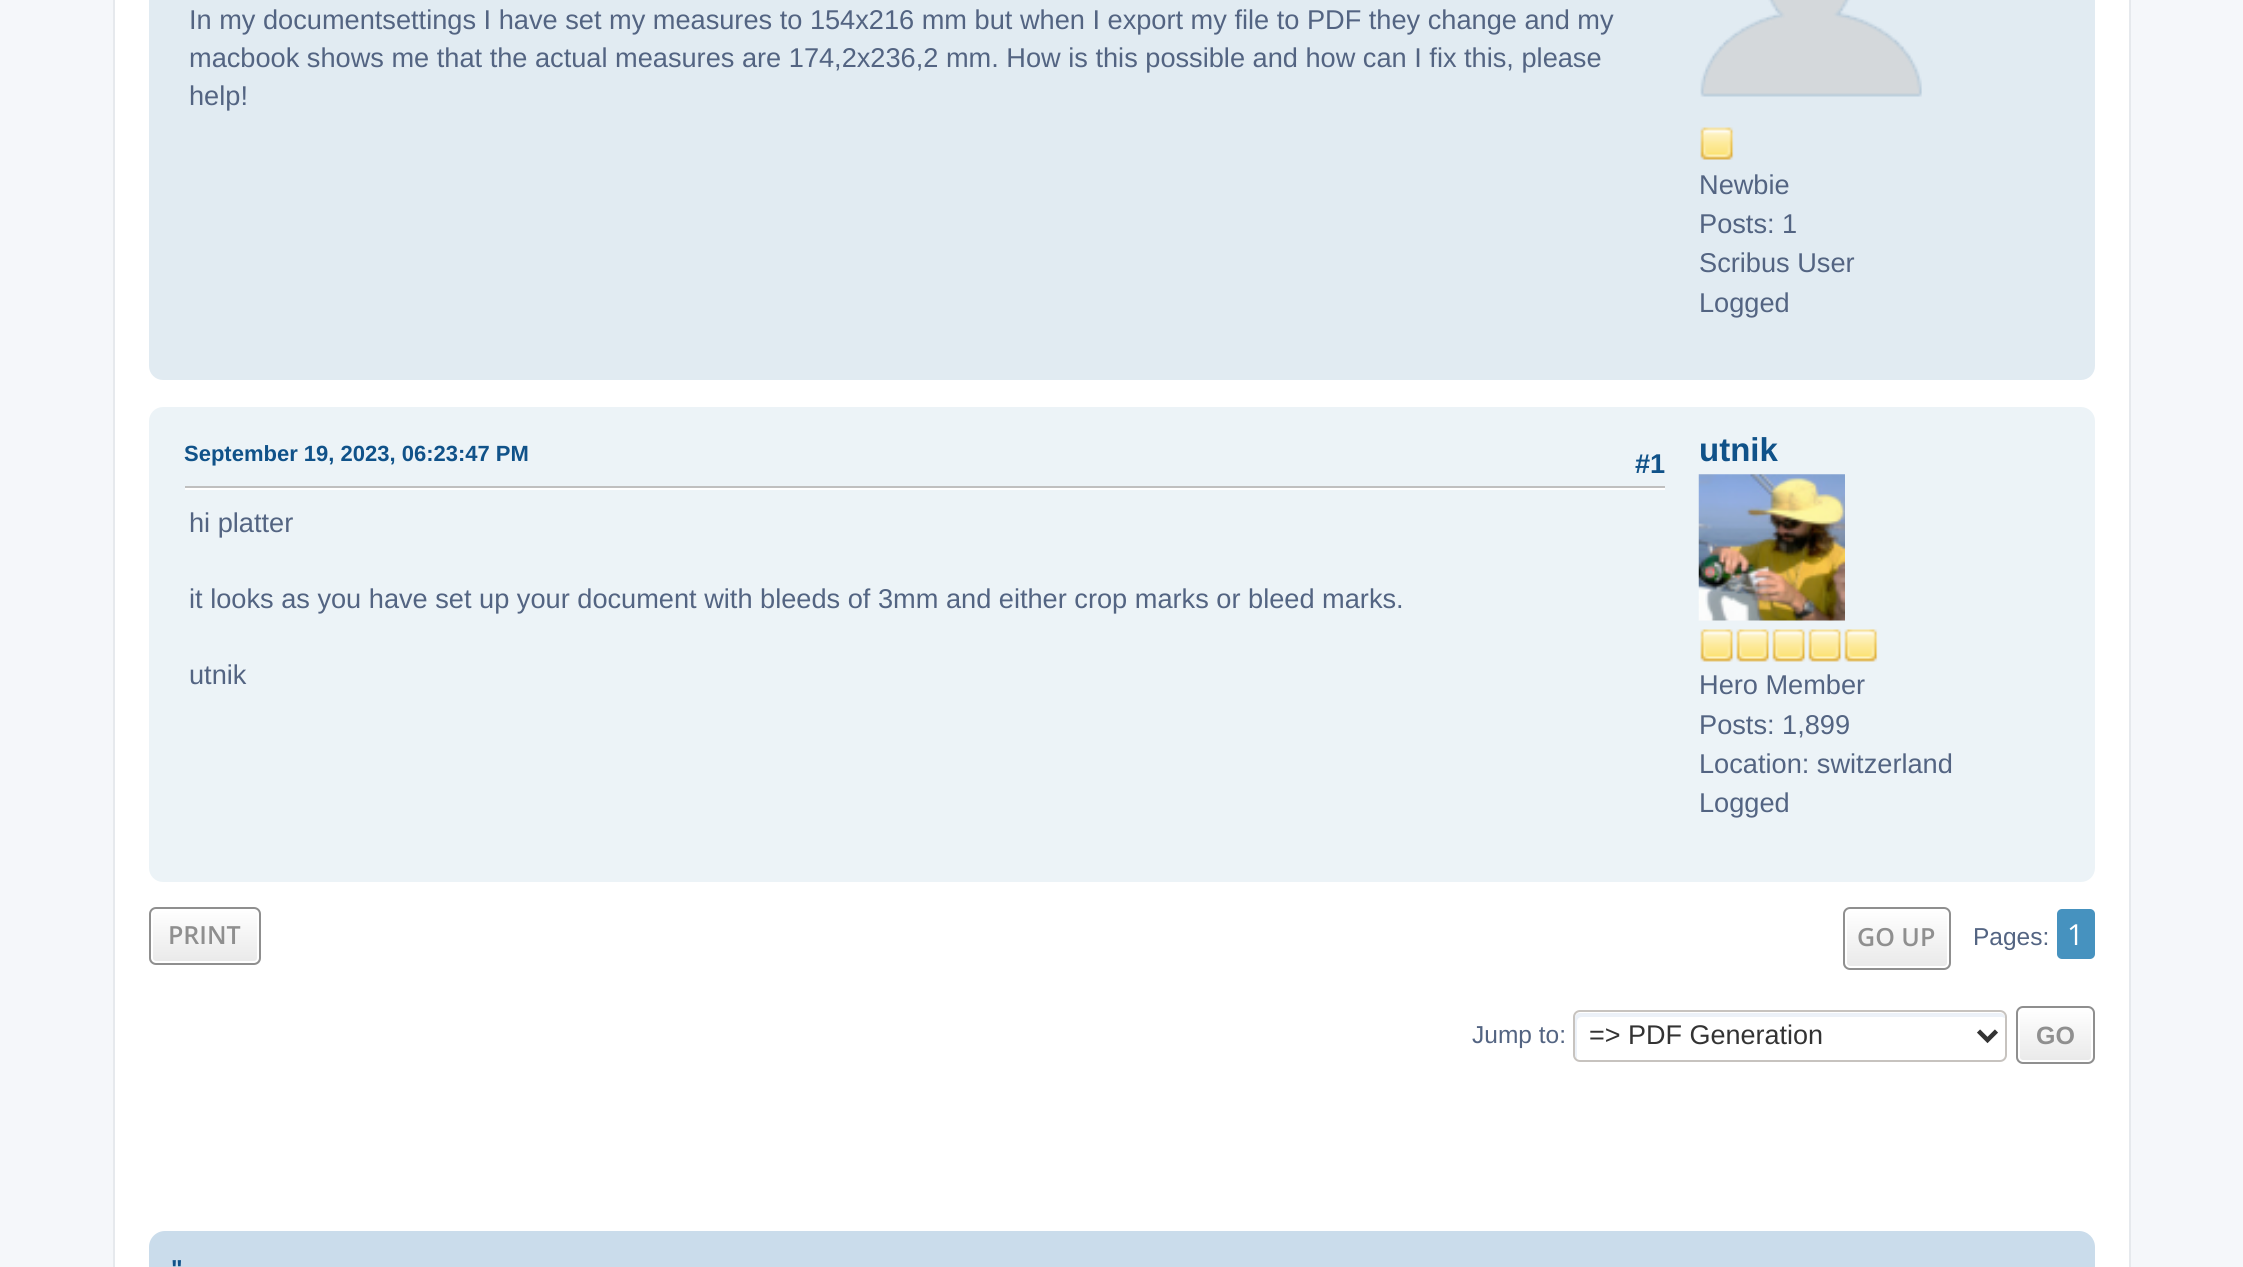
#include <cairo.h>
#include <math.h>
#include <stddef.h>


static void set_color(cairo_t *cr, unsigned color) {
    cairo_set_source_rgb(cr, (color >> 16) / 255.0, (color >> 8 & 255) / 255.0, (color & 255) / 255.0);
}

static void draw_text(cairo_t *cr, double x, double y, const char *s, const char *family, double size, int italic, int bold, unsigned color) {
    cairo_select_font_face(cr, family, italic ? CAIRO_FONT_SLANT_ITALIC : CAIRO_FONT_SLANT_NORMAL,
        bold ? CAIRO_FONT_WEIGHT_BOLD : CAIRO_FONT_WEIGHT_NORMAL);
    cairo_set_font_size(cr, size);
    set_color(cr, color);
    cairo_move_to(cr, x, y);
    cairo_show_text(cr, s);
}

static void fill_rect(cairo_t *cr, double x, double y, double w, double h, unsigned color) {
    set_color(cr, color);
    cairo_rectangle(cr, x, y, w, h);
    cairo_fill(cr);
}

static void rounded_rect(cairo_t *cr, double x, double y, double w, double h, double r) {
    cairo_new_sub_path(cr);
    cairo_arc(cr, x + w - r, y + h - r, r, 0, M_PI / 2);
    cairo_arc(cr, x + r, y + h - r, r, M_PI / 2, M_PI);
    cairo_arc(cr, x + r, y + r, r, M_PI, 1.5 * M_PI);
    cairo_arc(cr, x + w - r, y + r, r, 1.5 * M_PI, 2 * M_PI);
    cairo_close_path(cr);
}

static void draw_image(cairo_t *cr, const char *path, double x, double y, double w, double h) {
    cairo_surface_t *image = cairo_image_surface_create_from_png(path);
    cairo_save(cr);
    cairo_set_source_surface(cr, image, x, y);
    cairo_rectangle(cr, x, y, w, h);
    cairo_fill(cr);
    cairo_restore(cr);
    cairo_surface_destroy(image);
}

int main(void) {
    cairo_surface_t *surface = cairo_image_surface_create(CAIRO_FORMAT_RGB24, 2243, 1267);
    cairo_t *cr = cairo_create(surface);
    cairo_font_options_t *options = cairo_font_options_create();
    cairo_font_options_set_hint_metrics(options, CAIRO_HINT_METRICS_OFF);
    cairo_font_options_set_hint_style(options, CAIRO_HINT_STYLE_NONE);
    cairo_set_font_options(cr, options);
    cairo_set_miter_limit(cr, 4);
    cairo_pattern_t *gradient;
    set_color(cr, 0xF5F7FA);
    cairo_paint(cr);
    set_color(cr, 0xFFFFFF);
    cairo_rectangle(cr, 114, -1, 2016, 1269);
    cairo_fill_preserve(cr);
    set_color(cr, 0xE6E9ED);
    cairo_stroke(cr);
    set_color(cr, 0xE1EBF2);
    rounded_rect(cr, 149, -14, 1946, 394, 14);
    cairo_fill(cr);
    draw_text(cr, 189, 29, "In my documentsettings I have set my measures to 154x216 mm but when I export my file to PDF they change and my", "Liberation Sans", 27.18, 0, 0, 0x536482);
    draw_text(cr, 189, 67, "macbook shows me that the actual measures are 174,2x236,2 mm. How is this possible and how can I fix this, please", "Liberation Sans", 27.18, 0, 0, 0x536482);
    draw_text(cr, 189, 105, "help!", "Liberation Sans", 27.18, 0, 0, 0x536482);
    draw_image(cr, "assets/img1.png", 1700, 0, 222, 97);
    draw_image(cr, "assets/img2.png", 1700, 127, 34, 33);
    draw_text(cr, 1699, 194, "Newbie", "Liberation Sans", 27.18, 0, 0, 0x536482);
    draw_text(cr, 1699, 233, "Posts: 1", "Liberation Sans", 27.18, 0, 0, 0x536482);
    draw_text(cr, 1699, 272, "Scribus User", "Liberation Sans", 27.18, 0, 0, 0x536482);
    draw_text(cr, 1699, 312, "Logged", "Liberation Sans", 27.18, 0, 0, 0x536482);
    set_color(cr, 0xECF3F7);
    rounded_rect(cr, 149, 407, 1946, 475, 14);
    cairo_fill(cr);
    draw_text(cr, 184, 461, "September 19, 2023, 06:23:47 PM", "Liberation Sans", 22, 0, 1, 0x105289);
    draw_text(cr, 1635, 473, "#1", "Liberation Sans", 27.18, 0, 1, 0x105289);
    fill_rect(cr, 185, 488, 1480, 2, 0xFFFFFF);
    fill_rect(cr, 185, 486, 1480, 2, 0xBFBFBF);
    draw_text(cr, 189, 532, "hi platter", "Liberation Sans", 27.18, 0, 0, 0x536482);
    draw_text(cr, 189, 608, "it looks as you have set up your document with bleeds of 3mm and either crop marks or bleed marks.", "Liberation Sans", 27.18, 0, 0, 0x536482);
    draw_text(cr, 189, 684, "utnik", "Liberation Sans", 27.18, 0, 0, 0x536482);
    draw_text(cr, 1699, 461, "utnik", "Liberation Sans", 33, 0, 1, 0x105289);
    draw_image(cr, "assets/img3.png", 1698, 474, 147, 147);
    draw_image(cr, "assets/img4.png", 1700, 629, 34, 33);
    draw_image(cr, "assets/img4.png", 1736, 629, 34, 33);
    draw_image(cr, "assets/img4.png", 1772, 629, 34, 33);
    draw_image(cr, "assets/img4.png", 1808, 629, 34, 33);
    draw_image(cr, "assets/img5.png", 1844, 629, 34, 33);
    draw_text(cr, 1699, 694, "Hero Member", "Liberation Sans", 27.18, 0, 0, 0x536482);
    draw_text(cr, 1699, 734, "Posts: 1,899", "Liberation Sans", 27.18, 0, 0, 0x536482);
    draw_text(cr, 1699, 773, "Location: switzerland", "Liberation Sans", 27.18, 0, 0, 0x536482);
    draw_text(cr, 1699, 812, "Logged", "Liberation Sans", 27.18, 0, 0, 0x536482);
    cairo_save(cr);
    rounded_rect(cr, 149, 907, 112, 58, 7);
    cairo_clip(cr);
    gradient = cairo_pattern_create_linear(205, 909, 205, 963);
    cairo_pattern_add_color_stop_rgba(gradient, 0, 1, 1, 1, 1);
    cairo_pattern_add_color_stop_rgba(gradient, 1, 0.914, 0.914, 0.914, 1);
    cairo_set_source(cr, gradient);
    cairo_pattern_destroy(gradient);
    cairo_rectangle(cr, 149, 909, 112, 54);
    cairo_fill(cr);
    cairo_restore(cr);
    rounded_rect(cr, 152, 910, 106, 52, 4);
    set_color(cr, 0xFFFFFF);
    cairo_stroke(cr);
    rounded_rect(cr, 150, 908, 110, 56, 6);
    set_color(cr, 0x8F8F8F);
    cairo_stroke(cr);
    draw_text(cr, 168, 944, "PRINT", "Open Sans SemiBold", 25, 0, 0, 0x8F8F8F);
    cairo_save(cr);
    rounded_rect(cr, 1843, 907, 108, 63, 7);
    cairo_clip(cr);
    gradient = cairo_pattern_create_linear(1897, 909, 1897, 968);
    cairo_pattern_add_color_stop_rgba(gradient, 0, 1, 1, 1, 1);
    cairo_pattern_add_color_stop_rgba(gradient, 1, 0.914, 0.914, 0.914, 1);
    cairo_set_source(cr, gradient);
    cairo_pattern_destroy(gradient);
    cairo_rectangle(cr, 1843, 909, 108, 59);
    cairo_fill(cr);
    cairo_restore(cr);
    rounded_rect(cr, 1846, 910, 102, 57, 4);
    set_color(cr, 0xFFFFFF);
    cairo_stroke(cr);
    rounded_rect(cr, 1844, 908, 106, 61, 6);
    set_color(cr, 0x8F8F8F);
    cairo_stroke(cr);
    draw_text(cr, 1857, 946, "GO UP", "Open Sans SemiBold", 25, 0, 0, 0x8F8F8F);
    draw_text(cr, 1973, 945, "Pages:", "Liberation Sans", 24.5, 0, 0, 0x536482);
    set_color(cr, 0x4692BF);
    rounded_rect(cr, 2057, 909, 38, 50, 5);
    cairo_fill(cr);
    draw_text(cr, 2067, 945, "1", "Open Sans", 29, 0, 0, 0xFFFFFF);
    draw_text(cr, 1472, 1043, "Jump to:", "Liberation Sans", 24.5, 0, 0, 0x536482);
    set_color(cr, 0xECF1F8);
    cairo_new_path(cr);
    cairo_move_to(cr, 1582, 1017);
    cairo_line_to(cr, 2002, 1017);
    cairo_line_to(cr, 2005, 1018);
    cairo_curve_to(cr, 2005, 1015, 2003, 1013, 2000, 1013);
    cairo_line_to(cr, 1580, 1013);
    cairo_curve_to(cr, 1577, 1013, 1575, 1015, 1575, 1018);
    cairo_line_to(cr, 1575, 1055);
    cairo_curve_to(cr, 1575, 1057, 1576, 1058, 1577, 1059);
    cairo_line_to(cr, 1577, 1022);
    cairo_curve_to(cr, 1577, 1019, 1579, 1017, 1582, 1017);
    cairo_close_path(cr);
    cairo_fill(cr);
    rounded_rect(cr, 1574, 1011, 432, 50, 6);
    set_color(cr, 0xC7C3BF);
    cairo_stroke(cr);
    cairo_new_path(cr);
    cairo_move_to(cr, 1978.5, 1031);
    cairo_line_to(cr, 1987.5, 1040);
    cairo_line_to(cr, 1996.5, 1031);
    set_color(cr, 0x333333);
    cairo_set_line_width(cr, 4.5);
    cairo_stroke(cr);
    draw_text(cr, 1589, 1044, "=> PDF Generation", "Liberation Sans", 27, 0, 0, 0x333333);
    cairo_save(cr);
    rounded_rect(cr, 2016, 1006, 79, 58, 7);
    cairo_clip(cr);
    gradient = cairo_pattern_create_linear(2055, 1008, 2055, 1062);
    cairo_pattern_add_color_stop_rgba(gradient, 0, 1, 1, 1, 1);
    cairo_pattern_add_color_stop_rgba(gradient, 1, 0.914, 0.914, 0.914, 1);
    cairo_set_source(cr, gradient);
    cairo_pattern_destroy(gradient);
    cairo_rectangle(cr, 2016, 1008, 79, 54);
    cairo_fill(cr);
    cairo_restore(cr);
    rounded_rect(cr, 2019, 1009, 73, 52, 4);
    set_color(cr, 0xFFFFFF);
    cairo_set_line_width(cr, 2);
    cairo_stroke(cr);
    rounded_rect(cr, 2017, 1007, 77, 56, 6);
    set_color(cr, 0x8F8F8F);
    cairo_stroke(cr);
    draw_text(cr, 2036, 1044, "GO", "Liberation Sans", 25, 0, 1, 0x8F8F8F);
    set_color(cr, 0xCADCEB);
    rounded_rect(cr, 149, 1231, 1946, 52, 16);
    cairo_fill(cr);
    draw_text(cr, 171, 1277, "\"", "Liberation Sans", 24.5, 0, 1, 0x105289);
    cairo_surface_write_to_png(surface, "output.png");
    cairo_font_options_destroy(options);
    cairo_destroy(cr);
    cairo_surface_destroy(surface);
    return 0;
}
